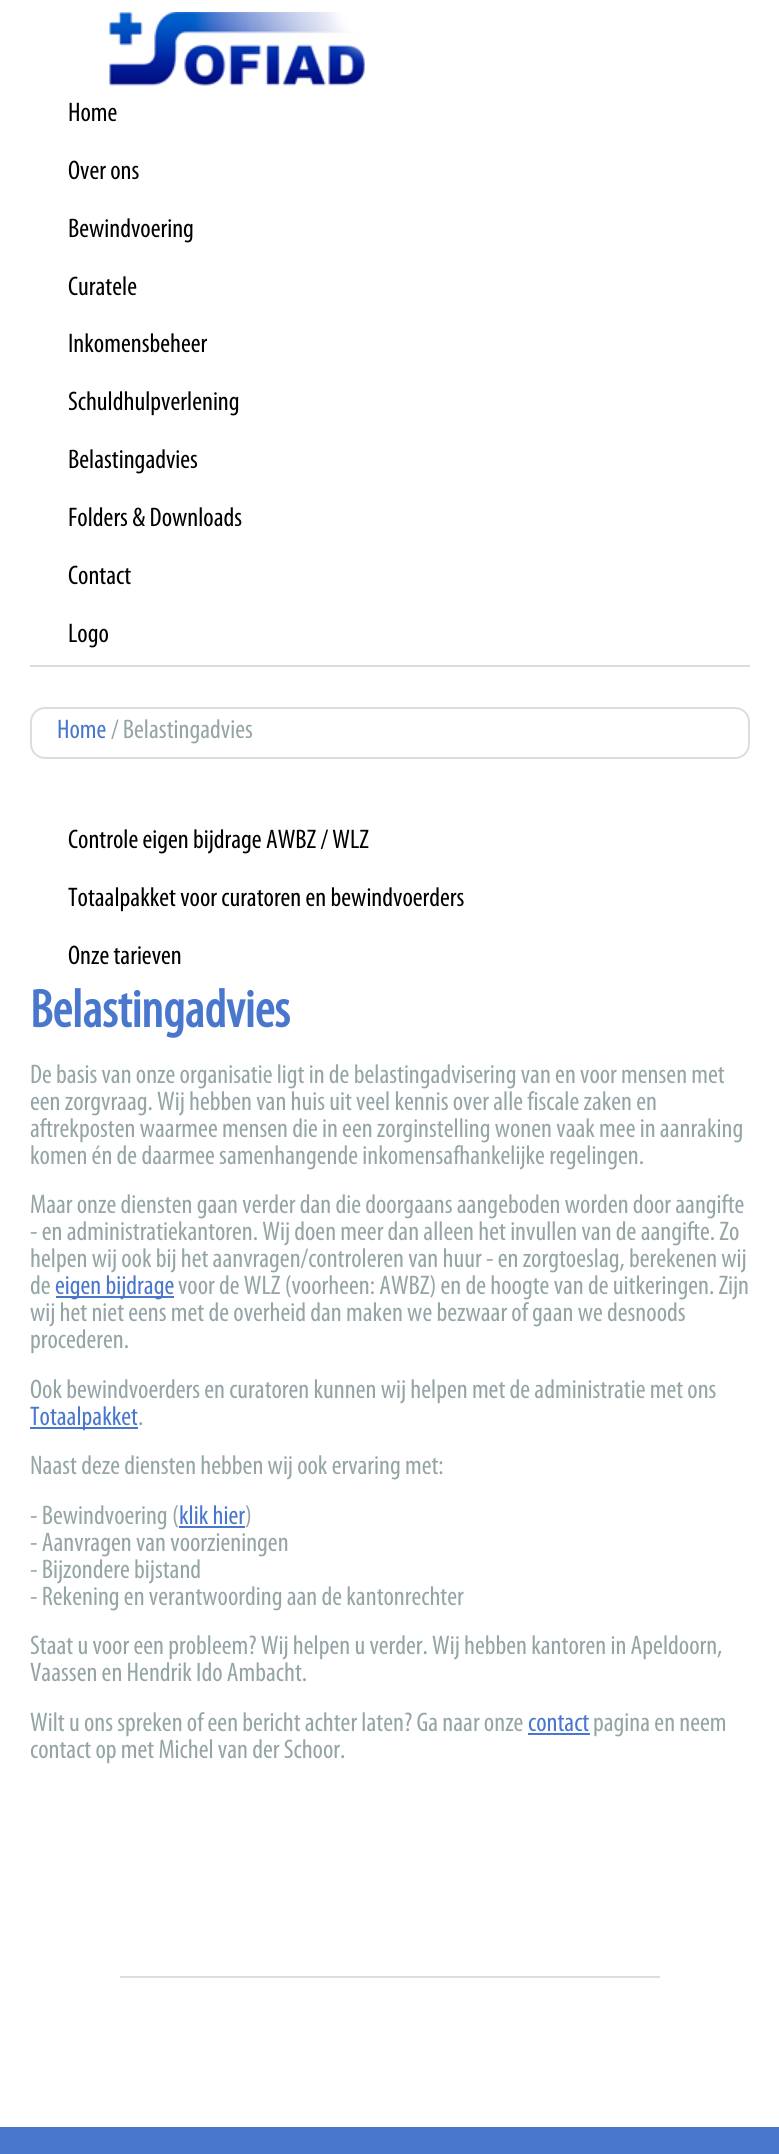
#include <cairo.h>
#include <math.h>
#include <stddef.h>


static void set_color(cairo_t *cr, unsigned color) {
    cairo_set_source_rgb(cr, (color >> 16) / 255.0, (color >> 8 & 255) / 255.0, (color & 255) / 255.0);
}

static void draw_text(cairo_t *cr, double x, double y, const char *s, const char *family, double size, int italic, int bold, unsigned color) {
    cairo_select_font_face(cr, family, italic ? CAIRO_FONT_SLANT_ITALIC : CAIRO_FONT_SLANT_NORMAL,
        bold ? CAIRO_FONT_WEIGHT_BOLD : CAIRO_FONT_WEIGHT_NORMAL);
    cairo_set_font_size(cr, size);
    set_color(cr, color);
    cairo_move_to(cr, x, y);
    cairo_show_text(cr, s);
}

static void fill_rect(cairo_t *cr, double x, double y, double w, double h, unsigned color) {
    set_color(cr, color);
    cairo_rectangle(cr, x, y, w, h);
    cairo_fill(cr);
}

static void rounded_rect(cairo_t *cr, double x, double y, double w, double h, double r) {
    cairo_new_sub_path(cr);
    cairo_arc(cr, x + w - r, y + h - r, r, 0, M_PI / 2);
    cairo_arc(cr, x + r, y + h - r, r, M_PI / 2, M_PI);
    cairo_arc(cr, x + r, y + r, r, M_PI, 1.5 * M_PI);
    cairo_arc(cr, x + w - r, y + r, r, 1.5 * M_PI, 2 * M_PI);
    cairo_close_path(cr);
}

static void draw_image(cairo_t *cr, const char *path, double x, double y, double w, double h) {
    cairo_surface_t *image = cairo_image_surface_create_from_png(path);
    cairo_save(cr);
    cairo_set_source_surface(cr, image, x, y);
    cairo_rectangle(cr, x, y, w, h);
    cairo_fill(cr);
    cairo_restore(cr);
    cairo_surface_destroy(image);
}

int main(void) {
    cairo_surface_t *surface = cairo_image_surface_create(CAIRO_FORMAT_RGB24, 779, 2154);
    cairo_t *cr = cairo_create(surface);
    cairo_font_options_t *options = cairo_font_options_create();
    cairo_font_options_set_hint_metrics(options, CAIRO_HINT_METRICS_OFF);
    cairo_font_options_set_hint_style(options, CAIRO_HINT_STYLE_NONE);
    cairo_set_font_options(cr, options);
    cairo_set_miter_limit(cr, 4);
    set_color(cr, 0xFFFFFF);
    cairo_paint(cr);
    draw_image(cr, "assets/img1.png", 109, 12, 256, 74);
    fill_rect(cr, 30, 665, 720, 2, 0xDDDDDD);
    draw_text(cr, 68, 121, "Home", "Myriad", 27, 0, 0, 0x000000);
    draw_text(cr, 68, 179, "Over ons", "Myriad", 27, 0, 0, 0x000000);
    draw_text(cr, 68, 237, "Bewindvoering", "Myriad", 27, 0, 0, 0x000000);
    draw_text(cr, 68, 295, "Curatele", "Myriad", 27, 0, 0, 0x000000);
    draw_text(cr, 68, 352, "Inkomensbeheer", "Myriad", 27, 0, 0, 0x000000);
    draw_text(cr, 68, 410, "Schuldhulpverlening", "Myriad", 27, 0, 0, 0x000000);
    draw_text(cr, 68, 468, "Belastingadvies", "Myriad", 27, 0, 0, 0x000000);
    draw_text(cr, 68, 526, "Folders & Downloads", "Myriad", 27, 0, 0, 0x000000);
    draw_text(cr, 68, 584, "Contact", "Myriad", 27, 0, 0, 0x000000);
    draw_text(cr, 68, 642, "Logo", "Myriad", 27, 0, 0, 0x000000);
    rounded_rect(cr, 31, 708, 718, 50, 14);
    set_color(cr, 0xDDDDDD);
    cairo_stroke(cr);
    draw_text(cr, 57, 738, "Home", "Myriad", 27, 0, 0, 0x4A77CE);
    draw_text(cr, 111, 738, "/ Belastingadvies", "Myriad", 27, 0, 0, 0x95A5A6);
    draw_text(cr, 68, 848, "Controle eigen bijdrage AWBZ / WLZ", "Myriad", 27, 0, 0, 0x000000);
    draw_text(cr, 68, 906, "Totaalpakket voor curatoren en bewindvoerders", "Myriad", 27, 0, 0, 0x000000);
    draw_text(cr, 68, 964, "Onze tarieven", "Myriad", 27, 0, 0, 0x000000);
    draw_text(cr, 30, 1027, "Belastingadvies", "Myriad", 54, 0, 1, 0x4A77CE);
    draw_text(cr, 30, 1083, "De basis van onze organisatie ligt in de belastingadvisering van en voor mensen met", "Myriad", 27, 0, 0, 0x95A5A6);
    draw_text(cr, 30, 1110, "een zorgvraag. Wij hebben van huis uit veel kennis over alle fiscale zaken en", "Myriad", 27, 0, 0, 0x95A5A6);
    draw_text(cr, 30, 1137, "aftrekposten waarmee mensen die in een zorginstelling wonen vaak mee in aanraking", "Myriad", 27, 0, 0, 0x95A5A6);
    draw_text(cr, 30, 1164, "komen én de daarmee samenhangende inkomensafhankelijke regelingen.", "Myriad", 27, 0, 0, 0x95A5A6);
    draw_text(cr, 30, 1213, "Maar onze diensten gaan verder dan die doorgaans aangeboden worden door aangifte", "Myriad", 27, 0, 0, 0x95A5A6);
    draw_text(cr, 30, 1240, "- en administratiekantoren. Wij doen meer dan alleen het invullen van de aangifte. Zo", "Myriad", 27, 0, 0, 0x95A5A6);
    draw_text(cr, 30, 1267, "helpen wij ook bij het aanvragen/controleren van huur - en zorgtoeslag, berekenen wij", "Myriad", 27, 0, 0, 0x95A5A6);
    draw_text(cr, 30, 1294, "de", "Myriad", 27, 0, 0, 0x95A5A6);
    fill_rect(cr, 56, 1296, 118, 2, 0x4A77CE);
    draw_text(cr, 55, 1294, "eigen bijdrage", "Myriad", 27, 0, 0, 0x4A77CE);
    draw_text(cr, 178, 1294, "voor de WLZ (voorheen: AWBZ) en de hoogte van de uitkeringen. Zijn", "Myriad", 27, 0, 0, 0x95A5A6);
    draw_text(cr, 30, 1321, "wij het niet eens met de overheid dan maken we bezwaar of gaan we desnoods", "Myriad", 27, 0, 0, 0x95A5A6);
    draw_text(cr, 30, 1348, "procederen.", "Myriad", 27, 0, 0, 0x95A5A6);
    draw_text(cr, 30, 1398, "Ook bewindvoerders en curatoren kunnen wij helpen met de administratie met ons", "Myriad", 27, 0, 0, 0x95A5A6);
    fill_rect(cr, 30, 1427, 108, 2, 0x4A77CE);
    draw_text(cr, 30, 1425, "Totaalpakket", "Myriad", 27, 0, 0, 0x4A77CE);
    draw_text(cr, 138, 1425, ".", "Myriad", 27, 0, 0, 0x95A5A6);
    draw_text(cr, 30, 1474, "Naast deze diensten hebben wij ook ervaring met:", "Myriad", 27, 0, 0, 0x95A5A6);
    draw_text(cr, 30, 1524, "- Bewindvoering (", "Myriad", 27, 0, 0, 0x95A5A6);
    draw_text(cr, 179, 1524, "klik hier", "Myriad", 27, 0, 0, 0x4A77CE);
    fill_rect(cr, 179, 1526, 66, 2, 0x4A77CE);
    draw_text(cr, 245, 1524, ")", "Myriad", 27, 0, 0, 0x95A5A6);
    draw_text(cr, 30, 1551, "- Aanvragen van voorzieningen", "Myriad", 27, 0, 0, 0x95A5A6);
    draw_text(cr, 30, 1578, "- Bijzondere bijstand", "Myriad", 27, 0, 0, 0x95A5A6);
    draw_text(cr, 30, 1605, "- Rekening en verantwoording aan de kantonrechter", "Myriad", 27, 0, 0, 0x95A5A6);
    draw_text(cr, 30, 1654, "Staat u voor een probleem? Wij helpen u verder. Wij hebben kantoren in Apeldoorn,", "Myriad", 27, 0, 0, 0x95A5A6);
    draw_text(cr, 30, 1681, "Vaassen en Hendrik Ido Ambacht.", "Myriad", 27, 0, 0, 0x95A5A6);
    draw_text(cr, 30, 1731, "Wilt u ons spreken of een bericht achter laten? Ga naar onze", "Myriad", 27, 0, 0, 0x95A5A6);
    draw_text(cr, 528, 1731, "contact", "Myriad", 27, 0, 0, 0x4A77CE);
    fill_rect(cr, 528, 1733, 62, 2, 0x4A77CE);
    draw_text(cr, 593, 1731, "pagina en neem", "Myriad", 27, 0, 0, 0x95A5A6);
    draw_text(cr, 30, 1758, "contact op met Michel van der Schoor.", "Myriad", 27, 0, 0, 0x95A5A6);
    fill_rect(cr, 120, 1976, 540, 2, 0xDDDDDD);
    fill_rect(cr, 0, 2127, 779, 27, 0x4A77CE);
    cairo_surface_write_to_png(surface, "output.png");
    cairo_font_options_destroy(options);
    cairo_destroy(cr);
    cairo_surface_destroy(surface);
    return 0;
}
